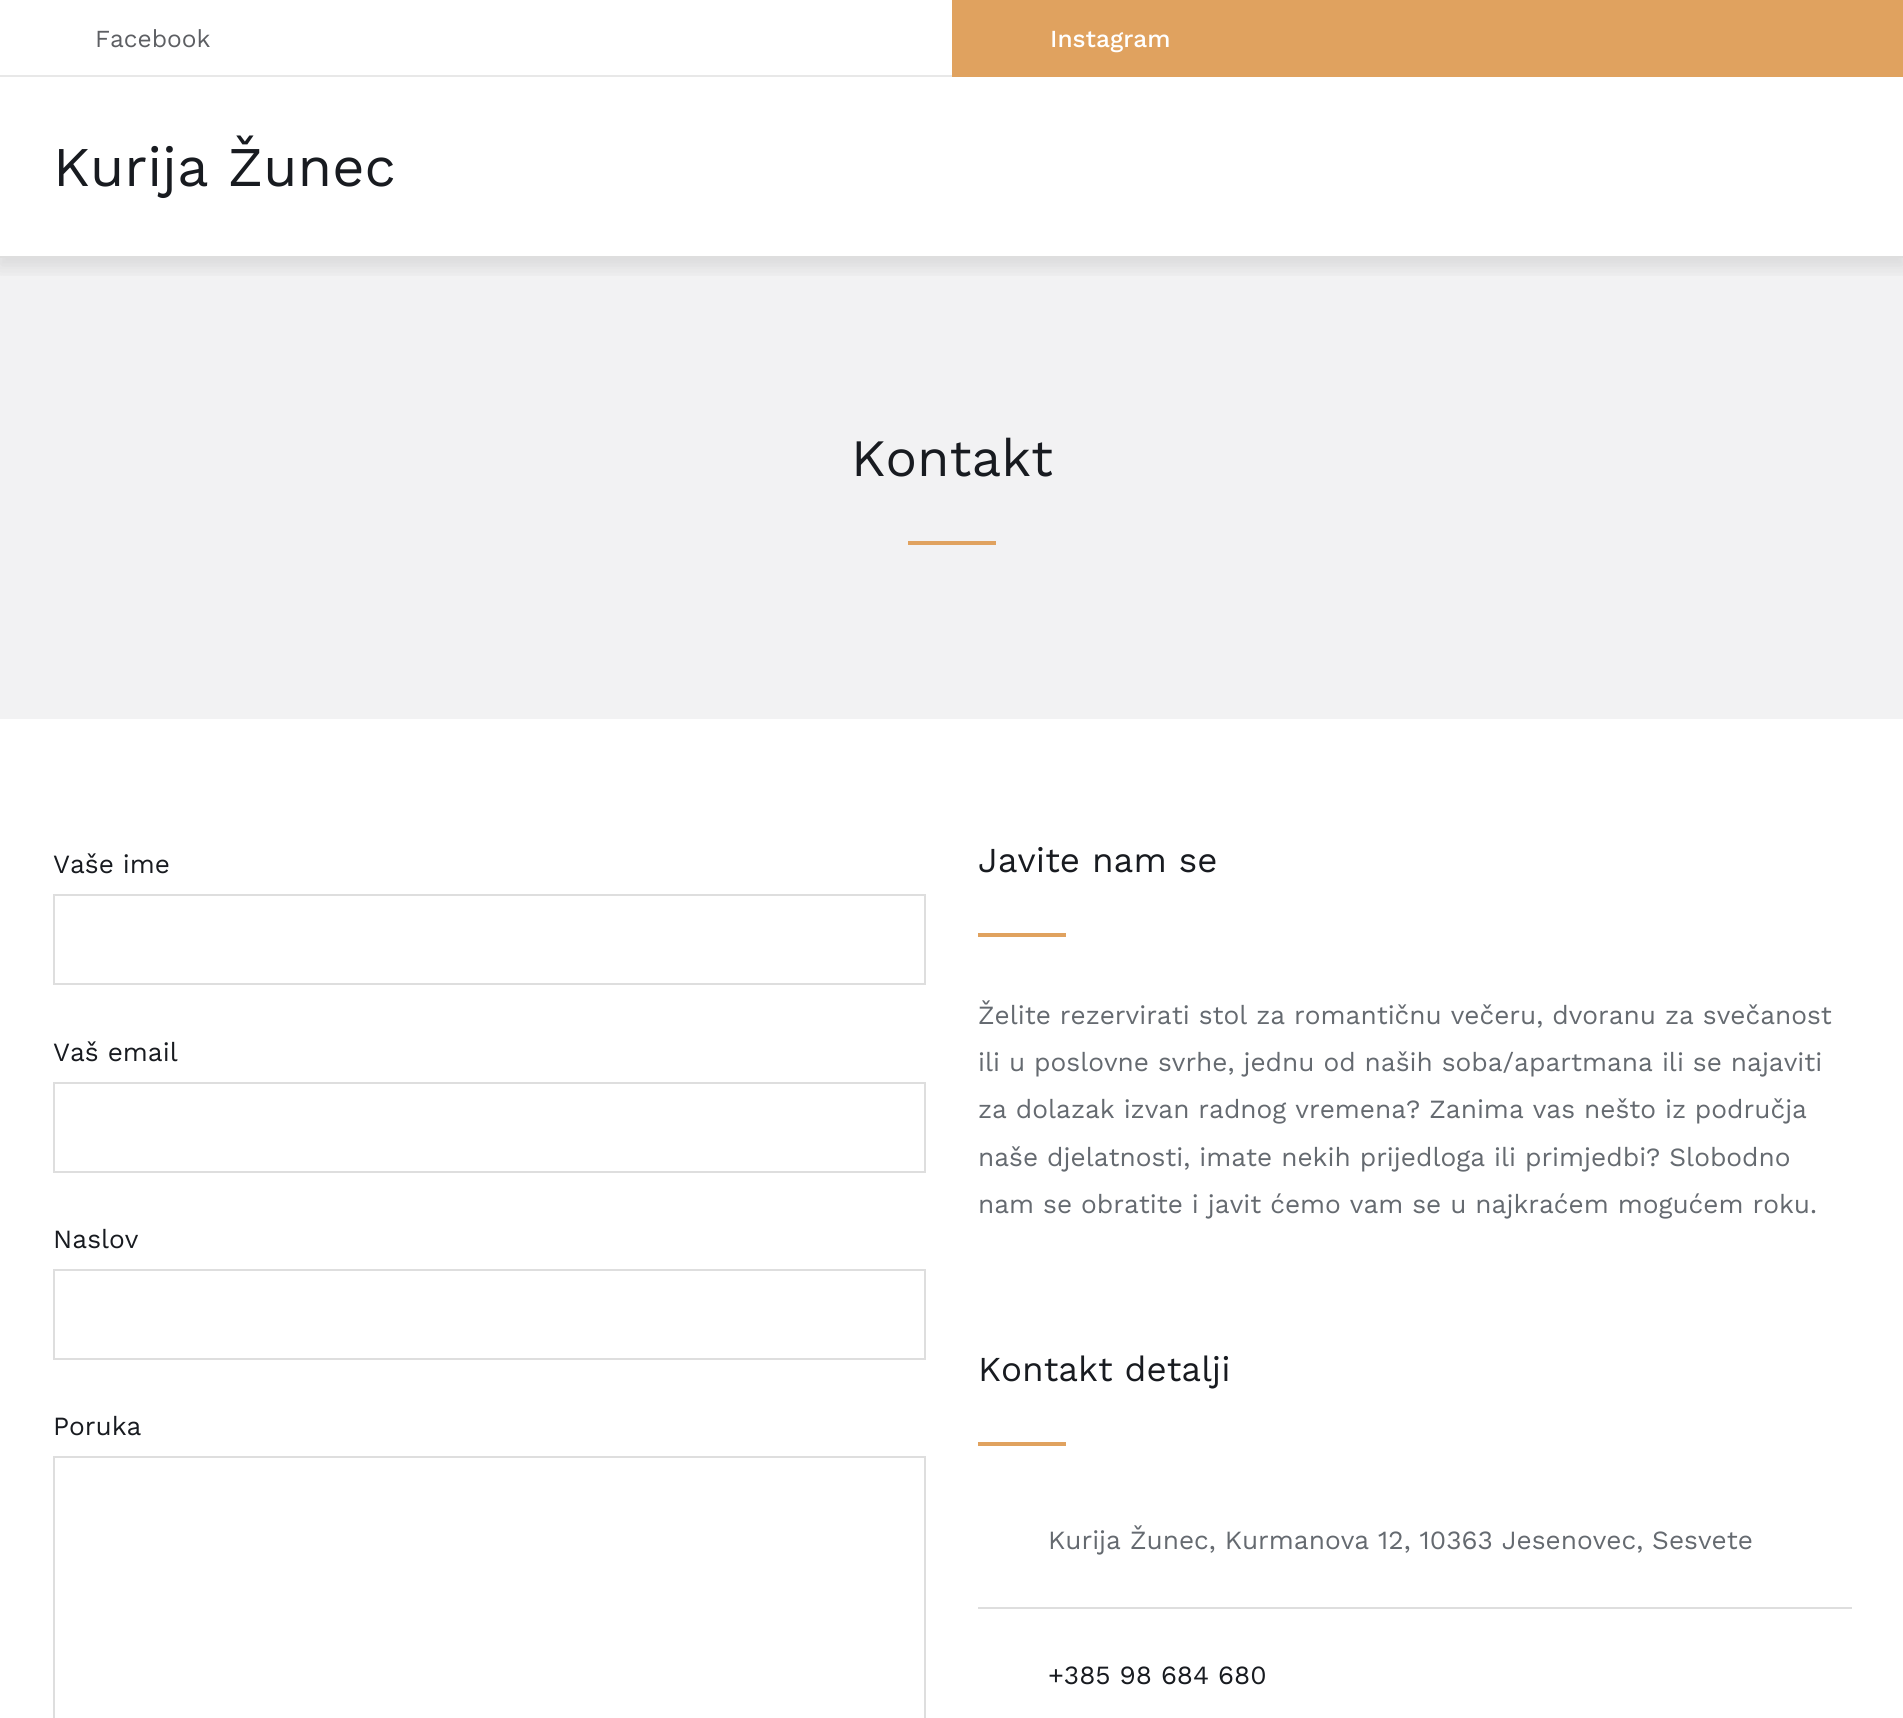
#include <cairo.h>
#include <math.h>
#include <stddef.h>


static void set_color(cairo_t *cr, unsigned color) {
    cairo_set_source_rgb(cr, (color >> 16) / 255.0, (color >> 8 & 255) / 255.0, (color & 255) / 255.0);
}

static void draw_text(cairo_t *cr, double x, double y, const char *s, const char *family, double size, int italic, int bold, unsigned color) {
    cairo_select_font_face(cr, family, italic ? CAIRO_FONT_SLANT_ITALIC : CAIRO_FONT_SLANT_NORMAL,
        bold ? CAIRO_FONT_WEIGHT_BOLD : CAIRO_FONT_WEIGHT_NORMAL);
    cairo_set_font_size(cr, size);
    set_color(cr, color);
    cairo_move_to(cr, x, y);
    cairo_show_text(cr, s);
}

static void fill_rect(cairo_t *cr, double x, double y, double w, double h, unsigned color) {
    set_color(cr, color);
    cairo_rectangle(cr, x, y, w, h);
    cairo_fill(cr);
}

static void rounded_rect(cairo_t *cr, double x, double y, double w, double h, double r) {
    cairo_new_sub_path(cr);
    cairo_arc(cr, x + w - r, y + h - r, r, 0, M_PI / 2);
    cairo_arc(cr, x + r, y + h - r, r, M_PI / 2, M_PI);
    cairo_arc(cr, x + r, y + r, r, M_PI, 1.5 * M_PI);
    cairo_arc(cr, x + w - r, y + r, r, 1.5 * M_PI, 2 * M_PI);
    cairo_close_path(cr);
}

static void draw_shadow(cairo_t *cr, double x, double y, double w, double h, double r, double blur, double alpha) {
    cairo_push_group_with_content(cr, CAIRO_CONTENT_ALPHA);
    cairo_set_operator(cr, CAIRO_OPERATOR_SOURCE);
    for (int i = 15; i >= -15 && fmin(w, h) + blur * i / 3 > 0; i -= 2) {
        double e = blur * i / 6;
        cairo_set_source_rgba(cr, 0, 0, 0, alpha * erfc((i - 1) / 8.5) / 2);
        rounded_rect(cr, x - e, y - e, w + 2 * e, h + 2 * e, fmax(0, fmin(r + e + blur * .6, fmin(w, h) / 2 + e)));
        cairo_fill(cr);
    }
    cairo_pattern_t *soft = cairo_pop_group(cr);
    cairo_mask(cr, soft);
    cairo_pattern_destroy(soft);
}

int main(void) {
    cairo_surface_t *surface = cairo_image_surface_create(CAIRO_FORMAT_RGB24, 1903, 1718);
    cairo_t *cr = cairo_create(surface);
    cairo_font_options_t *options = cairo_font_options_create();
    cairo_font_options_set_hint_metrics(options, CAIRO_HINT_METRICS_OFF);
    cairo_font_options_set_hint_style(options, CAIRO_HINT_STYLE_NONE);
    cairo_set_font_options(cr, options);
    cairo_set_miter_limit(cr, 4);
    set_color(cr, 0xFFFFFF);
    cairo_paint(cr);
    fill_rect(cr, 0, 258, 1903, 461, 0xF2F2F3);
    cairo_save(cr);
    cairo_rectangle(cr, 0, 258, 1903, 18);
    cairo_clip(cr);
    set_color(cr, 0x000000);
    draw_shadow(cr, -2, 7, 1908, 261, 0, 9, 0.1);
    cairo_restore(cr);
    fill_rect(cr, 0, 256, 1903, 2, 0xDEDEDE);
    fill_rect(cr, 0, 75, 952, 2, 0xE8E8E8);
    draw_text(cr, 95, 47, "Facebook", "Work Sans", 24.5, 0, 0, 0x5D5F63);
    fill_rect(cr, 952, 0, 951, 77, 0xE0A25F);
    draw_text(cr, 1050, 47, "Instagram", "Work Sans Medium", 24.5, 0, 0, 0xFFFFFF);
    draw_text(cr, 53, 186, "Kurija Žunec", "Work Sans", 56, 0, 0, 0x181B20);
    draw_text(cr, 851, 476, "Kontakt", "Work Sans", 52.5, 0, 0, 0x181B20);
    fill_rect(cr, 908, 541, 88, 4, 0xE0A25F);
    draw_text(cr, 53, 873, "Vaše ime", "Work Sans", 26.25, 0, 0, 0x181B20);
    cairo_rectangle(cr, 54, 895, 871, 89);
    set_color(cr, 0xDEDEDE);
    cairo_stroke(cr);
    draw_text(cr, 53, 1061, "Vaš email", "Work Sans", 26.25, 0, 0, 0x181B20);
    cairo_rectangle(cr, 54, 1083, 871, 89);
    set_color(cr, 0xDEDEDE);
    cairo_stroke(cr);
    draw_text(cr, 53, 1248, "Naslov", "Work Sans", 26.25, 0, 0, 0x181B20);
    cairo_rectangle(cr, 54, 1270, 871, 89);
    set_color(cr, 0xDEDEDE);
    cairo_stroke(cr);
    draw_text(cr, 53, 1435, "Poruka", "Work Sans", 26.25, 0, 0, 0x181B20);
    cairo_rectangle(cr, 54, 1457, 871, 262);
    set_color(cr, 0xDEDEDE);
    cairo_stroke(cr);
    draw_text(cr, 978, 872, "Javite nam se", "Work Sans", 35, 0, 0, 0x181B20);
    fill_rect(cr, 978, 933, 88, 4, 0xE0A25F);
    draw_text(cr, 978, 1024, "Želite rezervirati stol za romantičnu večeru, dvoranu za svečanost", "Work Sans", 26.25, 0, 0, 0x656A70);
    draw_text(cr, 978, 1071, "ili u poslovne svrhe, jednu od naših soba/apartmana ili se najaviti", "Work Sans", 26.25, 0, 0, 0x656A70);
    draw_text(cr, 978, 1118, "za dolazak izvan radnog vremena? Zanima vas nešto iz područja", "Work Sans", 26.25, 0, 0, 0x656A70);
    draw_text(cr, 978, 1166, "naše djelatnosti, imate nekih prijedloga ili primjedbi? Slobodno", "Work Sans", 26.25, 0, 0, 0x656A70);
    draw_text(cr, 978, 1213, "nam se obratite i javit ćemo vam se u najkraćem mogućem roku.", "Work Sans", 26.25, 0, 0, 0x656A70);
    draw_text(cr, 978, 1381, "Kontakt detalji", "Work Sans", 35, 0, 0, 0x181B20);
    fill_rect(cr, 978, 1442, 88, 4, 0xE0A25F);
    fill_rect(cr, 978, 1607, 874, 2, 0xDEDEDE);
    draw_text(cr, 1048, 1549, "Kurija Žunec, Kurmanova 12, 10363 Jesenovec, Sesvete", "Work Sans", 26.25, 0, 0, 0x656A70);
    draw_text(cr, 1048, 1684, "+385 98 684 680", "Work Sans", 26.25, 0, 0, 0x181B20);
    cairo_surface_write_to_png(surface, "output.png");
    cairo_font_options_destroy(options);
    cairo_destroy(cr);
    cairo_surface_destroy(surface);
    return 0;
}
